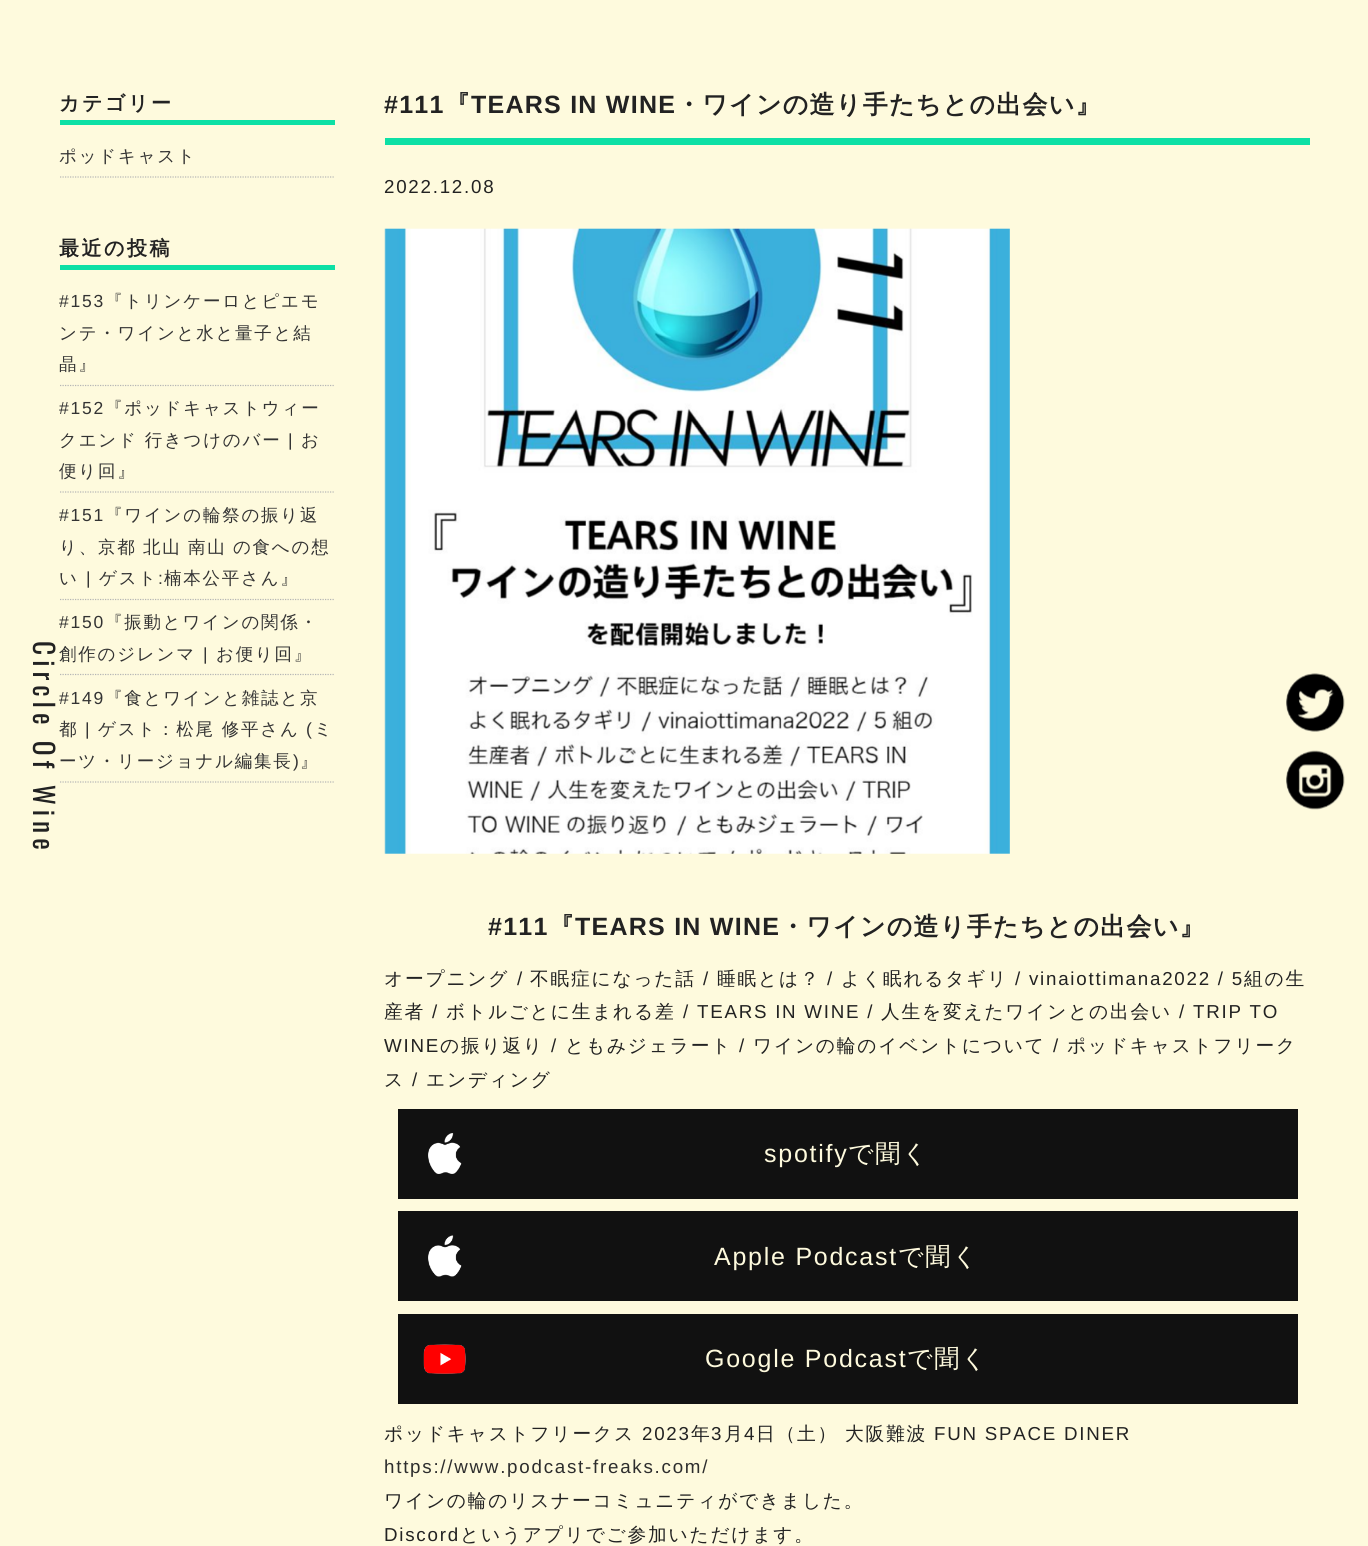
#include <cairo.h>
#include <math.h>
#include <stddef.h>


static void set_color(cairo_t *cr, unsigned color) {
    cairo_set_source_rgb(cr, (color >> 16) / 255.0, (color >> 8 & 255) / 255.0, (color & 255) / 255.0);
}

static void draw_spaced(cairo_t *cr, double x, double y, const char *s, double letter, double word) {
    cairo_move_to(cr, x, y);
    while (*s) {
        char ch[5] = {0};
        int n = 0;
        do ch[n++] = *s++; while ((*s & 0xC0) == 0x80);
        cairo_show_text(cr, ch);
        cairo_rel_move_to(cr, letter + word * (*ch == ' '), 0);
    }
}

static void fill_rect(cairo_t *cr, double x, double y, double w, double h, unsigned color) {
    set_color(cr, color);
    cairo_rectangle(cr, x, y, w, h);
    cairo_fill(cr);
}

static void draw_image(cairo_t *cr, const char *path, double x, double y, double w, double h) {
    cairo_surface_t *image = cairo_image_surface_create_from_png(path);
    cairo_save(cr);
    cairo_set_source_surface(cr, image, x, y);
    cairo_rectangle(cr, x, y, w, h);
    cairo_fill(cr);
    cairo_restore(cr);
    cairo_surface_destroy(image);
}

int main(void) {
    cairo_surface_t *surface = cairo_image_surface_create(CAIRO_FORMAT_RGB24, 1368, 1546);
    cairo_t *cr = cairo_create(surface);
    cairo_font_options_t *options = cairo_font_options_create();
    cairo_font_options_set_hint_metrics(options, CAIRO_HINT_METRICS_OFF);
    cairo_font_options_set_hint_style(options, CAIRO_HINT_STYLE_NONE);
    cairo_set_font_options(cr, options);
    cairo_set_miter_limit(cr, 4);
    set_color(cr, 0xFEFADD);
    cairo_paint(cr);
    cairo_select_font_face(cr, "Oswald", CAIRO_FONT_SLANT_NORMAL, CAIRO_FONT_WEIGHT_NORMAL);
    cairo_set_font_size(cr, 27.5);
    set_color(cr, 0x222222);
    cairo_save(cr);
    cairo_translate(cr, 33, 641);
    cairo_rotate(cr, 90 * M_PI / 180);
    draw_spaced(cr, 0, 0, "Circle Of Wine", 5, 0);
    cairo_restore(cr);
    fill_rect(cr, 60, 120, 275, 5, 0x0DE0A5);
    cairo_select_font_face(cr, "WenQuanYi Zen Hei", CAIRO_FONT_SLANT_NORMAL, CAIRO_FONT_WEIGHT_BOLD);
    cairo_set_font_size(cr, 20);
    set_color(cr, 0x222222);
    draw_spaced(cr, 59, 110, "カテゴリー", 2.5, 0);
    cairo_new_path(cr);
    cairo_move_to(cr, 60, 177);
    cairo_line_to(cr, 335, 177);
    set_color(cr, 0xB5B5B5);
    cairo_set_line_width(cr, 1.2);
    cairo_set_dash(cr, (double[]){1.25, 1.25}, 2, 0);
    cairo_stroke(cr);
    cairo_select_font_face(cr, "WenQuanYi Zen Hei Medium", CAIRO_FONT_SLANT_NORMAL, CAIRO_FONT_WEIGHT_NORMAL);
    cairo_set_font_size(cr, 17.5);
    set_color(cr, 0x333333);
    draw_spaced(cr, 59, 162, "ポッドキャスト", 1.75, 0);
    fill_rect(cr, 60, 265, 275, 5, 0x0DE0A5);
    cairo_select_font_face(cr, "WenQuanYi Zen Hei", CAIRO_FONT_SLANT_NORMAL, CAIRO_FONT_WEIGHT_BOLD);
    cairo_set_font_size(cr, 20);
    set_color(cr, 0x222222);
    draw_spaced(cr, 59, 255, "最近の投稿", 2.5, 0);
    cairo_new_path(cr);
    cairo_move_to(cr, 60, 385.5);
    cairo_line_to(cr, 335, 385.5);
    set_color(cr, 0xB5B5B5);
    cairo_stroke(cr);
    cairo_select_font_face(cr, "Liberation Sans", CAIRO_FONT_SLANT_NORMAL, CAIRO_FONT_WEIGHT_NORMAL);
    cairo_set_font_size(cr, 17.5);
    set_color(cr, 0x333333);
    draw_spaced(cr, 59, 307, "#153", 1.75, 0);
    cairo_select_font_face(cr, "WenQuanYi Zen Hei Medium", CAIRO_FONT_SLANT_NORMAL, CAIRO_FONT_WEIGHT_NORMAL);
    draw_spaced(cr, 105, 307, "『トリンケーロとピエモ", 1.75, 0);
    draw_spaced(cr, 59, 339, "ンテ・ワインと水と量子と結", 1.75, 0);
    draw_spaced(cr, 59, 370, "晶』", 1.75, 0);
    cairo_new_path(cr);
    cairo_move_to(cr, 60, 492);
    cairo_line_to(cr, 335, 492);
    set_color(cr, 0xB5B5B5);
    cairo_stroke(cr);
    cairo_select_font_face(cr, "Liberation Sans", CAIRO_FONT_SLANT_NORMAL, CAIRO_FONT_WEIGHT_NORMAL);
    set_color(cr, 0x333333);
    draw_spaced(cr, 59, 414, "#152", 1.75, 0);
    cairo_select_font_face(cr, "WenQuanYi Zen Hei Medium", CAIRO_FONT_SLANT_NORMAL, CAIRO_FONT_WEIGHT_NORMAL);
    draw_spaced(cr, 105, 414, "『ポッドキャストウィー", 1.75, 0);
    draw_spaced(cr, 59, 446, "クエンド 行きつけのバー", 1.75, 0);
    cairo_select_font_face(cr, "Liberation Sans", CAIRO_FONT_SLANT_NORMAL, CAIRO_FONT_WEIGHT_NORMAL);
    draw_spaced(cr, 288, 446, "|", 1.75, 0);
    cairo_select_font_face(cr, "WenQuanYi Zen Hei Medium", CAIRO_FONT_SLANT_NORMAL, CAIRO_FONT_WEIGHT_NORMAL);
    draw_spaced(cr, 301, 446, "お", 1.75, 0);
    draw_spaced(cr, 59, 477, "便り回』", 1.75, 0);
    cairo_new_path(cr);
    cairo_move_to(cr, 60, 599.5);
    cairo_line_to(cr, 335, 599.5);
    set_color(cr, 0xB5B5B5);
    cairo_stroke(cr);
    cairo_select_font_face(cr, "Liberation Sans", CAIRO_FONT_SLANT_NORMAL, CAIRO_FONT_WEIGHT_NORMAL);
    set_color(cr, 0x333333);
    draw_spaced(cr, 59, 521, "#151", 1.75, 0);
    cairo_select_font_face(cr, "WenQuanYi Zen Hei Medium", CAIRO_FONT_SLANT_NORMAL, CAIRO_FONT_WEIGHT_NORMAL);
    draw_spaced(cr, 105, 521, "『ワインの輪祭の振り返", 1.75, 0);
    draw_spaced(cr, 59, 553, "り、京都 北山 南山 の食への想", 1.75, -0.5);
    draw_spaced(cr, 59, 584, "い", 1.75, 0);
    cairo_select_font_face(cr, "Liberation Sans", CAIRO_FONT_SLANT_NORMAL, CAIRO_FONT_WEIGHT_NORMAL);
    draw_spaced(cr, 86, 584, "|", 1.75, 0);
    cairo_select_font_face(cr, "WenQuanYi Zen Hei Medium", CAIRO_FONT_SLANT_NORMAL, CAIRO_FONT_WEIGHT_NORMAL);
    draw_spaced(cr, 99, 584, "ゲスト", 1.75, 0);
    cairo_select_font_face(cr, "Liberation Sans", CAIRO_FONT_SLANT_NORMAL, CAIRO_FONT_WEIGHT_NORMAL);
    draw_spaced(cr, 158, 584, ":", 1.75, 0);
    cairo_select_font_face(cr, "WenQuanYi Zen Hei Medium", CAIRO_FONT_SLANT_NORMAL, CAIRO_FONT_WEIGHT_NORMAL);
    draw_spaced(cr, 164, 584, "楠本公平さん』", 1.75, 0);
    cairo_new_path(cr);
    cairo_move_to(cr, 60, 674.5);
    cairo_line_to(cr, 335, 674.5);
    set_color(cr, 0xB5B5B5);
    cairo_stroke(cr);
    cairo_select_font_face(cr, "Liberation Sans", CAIRO_FONT_SLANT_NORMAL, CAIRO_FONT_WEIGHT_NORMAL);
    set_color(cr, 0x333333);
    draw_spaced(cr, 59, 628, "#150", 1.75, 0);
    cairo_select_font_face(cr, "WenQuanYi Zen Hei Medium", CAIRO_FONT_SLANT_NORMAL, CAIRO_FONT_WEIGHT_NORMAL);
    draw_spaced(cr, 105, 628, "『振動とワインの関係・", 1.75, 0);
    draw_spaced(cr, 59, 660, "創作のジレンマ", 1.75, 0);
    cairo_select_font_face(cr, "Liberation Sans", CAIRO_FONT_SLANT_NORMAL, CAIRO_FONT_WEIGHT_NORMAL);
    draw_spaced(cr, 203, 660, "|", 1.75, 0);
    cairo_select_font_face(cr, "WenQuanYi Zen Hei Medium", CAIRO_FONT_SLANT_NORMAL, CAIRO_FONT_WEIGHT_NORMAL);
    draw_spaced(cr, 216, 660, "お便り回』", 1.75, 0);
    cairo_new_path(cr);
    cairo_move_to(cr, 60, 782);
    cairo_line_to(cr, 335, 782);
    set_color(cr, 0xB5B5B5);
    cairo_stroke(cr);
    cairo_select_font_face(cr, "Liberation Sans", CAIRO_FONT_SLANT_NORMAL, CAIRO_FONT_WEIGHT_NORMAL);
    set_color(cr, 0x333333);
    draw_spaced(cr, 59, 704, "#149", 1.75, 0);
    cairo_select_font_face(cr, "WenQuanYi Zen Hei Medium", CAIRO_FONT_SLANT_NORMAL, CAIRO_FONT_WEIGHT_NORMAL);
    draw_spaced(cr, 105, 704, "『食とワインと雑誌と京", 1.75, 0);
    draw_spaced(cr, 59, 735, "都", 1.75, 0);
    cairo_select_font_face(cr, "Liberation Sans", CAIRO_FONT_SLANT_NORMAL, CAIRO_FONT_WEIGHT_NORMAL);
    draw_spaced(cr, 85, 735, "|", 1.75, 0);
    cairo_select_font_face(cr, "WenQuanYi Zen Hei Medium", CAIRO_FONT_SLANT_NORMAL, CAIRO_FONT_WEIGHT_NORMAL);
    draw_spaced(cr, 98, 735, "ゲスト：松尾 修平さん", 1.75, 0);
    cairo_select_font_face(cr, "Liberation Sans", CAIRO_FONT_SLANT_NORMAL, CAIRO_FONT_WEIGHT_NORMAL);
    draw_spaced(cr, 306, 735, "(", 1.75, 0);
    cairo_select_font_face(cr, "WenQuanYi Zen Hei Medium", CAIRO_FONT_SLANT_NORMAL, CAIRO_FONT_WEIGHT_NORMAL);
    draw_spaced(cr, 314, 735, "ミ", 1.75, 0);
    draw_spaced(cr, 59, 767, "ーツ・リージョナル編集長", 1.75, 0);
    cairo_select_font_face(cr, "Liberation Sans", CAIRO_FONT_SLANT_NORMAL, CAIRO_FONT_WEIGHT_NORMAL);
    draw_spaced(cr, 293, 767, ")", 1.75, 0);
    cairo_select_font_face(cr, "WenQuanYi Zen Hei Medium", CAIRO_FONT_SLANT_NORMAL, CAIRO_FONT_WEIGHT_NORMAL);
    draw_spaced(cr, 300, 767, "』", 1.75, 0);
    fill_rect(cr, 385, 138, 925, 7, 0x0DE0A5);
    cairo_select_font_face(cr, "Liberation Sans", CAIRO_FONT_SLANT_NORMAL, CAIRO_FONT_WEIGHT_BOLD);
    cairo_set_font_size(cr, 25);
    set_color(cr, 0x222222);
    draw_spaced(cr, 384, 113, "#111", 1.25, 0);
    cairo_select_font_face(cr, "WenQuanYi Zen Hei", CAIRO_FONT_SLANT_NORMAL, CAIRO_FONT_WEIGHT_BOLD);
    draw_spaced(cr, 445, 113, "『", 1.25, 0);
    cairo_select_font_face(cr, "Liberation Sans", CAIRO_FONT_SLANT_NORMAL, CAIRO_FONT_WEIGHT_BOLD);
    draw_spaced(cr, 471, 113, "TEARS IN WINE", 1.25, 0);
    cairo_select_font_face(cr, "WenQuanYi Zen Hei", CAIRO_FONT_SLANT_NORMAL, CAIRO_FONT_WEIGHT_BOLD);
    draw_spaced(cr, 676, 113, "・ワインの造り手たちとの出会い』", 1.25, 0);
    cairo_select_font_face(cr, "Liberation Sans", CAIRO_FONT_SLANT_NORMAL, CAIRO_FONT_WEIGHT_NORMAL);
    cairo_set_font_size(cr, 18.75);
    draw_spaced(cr, 384, 193, "2022.12.08", 1.75, 0);
    draw_image(cr, "assets/img1.png", 384, 228, 626, 626);
    cairo_select_font_face(cr, "Liberation Sans", CAIRO_FONT_SLANT_NORMAL, CAIRO_FONT_WEIGHT_BOLD);
    cairo_set_font_size(cr, 25);
    draw_spaced(cr, 488, 935, "#111", 1.25, 0);
    cairo_select_font_face(cr, "WenQuanYi Zen Hei", CAIRO_FONT_SLANT_NORMAL, CAIRO_FONT_WEIGHT_BOLD);
    draw_spaced(cr, 549, 935, "『", 1.25, 0);
    cairo_select_font_face(cr, "Liberation Sans", CAIRO_FONT_SLANT_NORMAL, CAIRO_FONT_WEIGHT_BOLD);
    draw_spaced(cr, 575, 935, "TEARS IN WINE", 1.25, 0);
    cairo_select_font_face(cr, "WenQuanYi Zen Hei", CAIRO_FONT_SLANT_NORMAL, CAIRO_FONT_WEIGHT_BOLD);
    draw_spaced(cr, 780, 935, "・ワインの造り手たちとの出会い』", 1.25, 0);
    cairo_select_font_face(cr, "WenQuanYi Zen Hei Medium", CAIRO_FONT_SLANT_NORMAL, CAIRO_FONT_WEIGHT_NORMAL);
    cairo_set_font_size(cr, 18.75);
    draw_spaced(cr, 384, 985, "オープニング", 1.75, 0);
    cairo_select_font_face(cr, "Liberation Sans", CAIRO_FONT_SLANT_NORMAL, CAIRO_FONT_WEIGHT_NORMAL);
    draw_spaced(cr, 517, 985, "/", 1.75, 0);
    cairo_select_font_face(cr, "WenQuanYi Zen Hei Medium", CAIRO_FONT_SLANT_NORMAL, CAIRO_FONT_WEIGHT_NORMAL);
    draw_spaced(cr, 530, 985, "不眠症になった話", 1.75, 0);
    cairo_select_font_face(cr, "Liberation Sans", CAIRO_FONT_SLANT_NORMAL, CAIRO_FONT_WEIGHT_NORMAL);
    draw_spaced(cr, 703, 985, "/", 1.75, 0);
    cairo_select_font_face(cr, "WenQuanYi Zen Hei Medium", CAIRO_FONT_SLANT_NORMAL, CAIRO_FONT_WEIGHT_NORMAL);
    draw_spaced(cr, 717, 985, "睡眠とは？", 1.75, 0);
    cairo_select_font_face(cr, "Liberation Sans", CAIRO_FONT_SLANT_NORMAL, CAIRO_FONT_WEIGHT_NORMAL);
    draw_spaced(cr, 827, 985, "/", 1.75, 0);
    cairo_select_font_face(cr, "WenQuanYi Zen Hei Medium", CAIRO_FONT_SLANT_NORMAL, CAIRO_FONT_WEIGHT_NORMAL);
    draw_spaced(cr, 841, 985, "よく眠れるタギリ", 1.75, 0);
    cairo_select_font_face(cr, "Liberation Sans", CAIRO_FONT_SLANT_NORMAL, CAIRO_FONT_WEIGHT_NORMAL);
    draw_spaced(cr, 1015, 985, "/ vinaiottimana2022 / 5", 1.75, 0);
    cairo_select_font_face(cr, "WenQuanYi Zen Hei Medium", CAIRO_FONT_SLANT_NORMAL, CAIRO_FONT_WEIGHT_NORMAL);
    draw_spaced(cr, 1244, 985, "組の生", 1.75, 0);
    draw_spaced(cr, 384, 1018, "産者", 1.75, 0);
    cairo_select_font_face(cr, "Liberation Sans", CAIRO_FONT_SLANT_NORMAL, CAIRO_FONT_WEIGHT_NORMAL);
    draw_spaced(cr, 432, 1018, "/", 1.75, 0);
    cairo_select_font_face(cr, "WenQuanYi Zen Hei Medium", CAIRO_FONT_SLANT_NORMAL, CAIRO_FONT_WEIGHT_NORMAL);
    draw_spaced(cr, 446, 1018, "ボトルごとに生まれる差", 1.75, 0);
    cairo_select_font_face(cr, "Liberation Sans", CAIRO_FONT_SLANT_NORMAL, CAIRO_FONT_WEIGHT_NORMAL);
    draw_spaced(cr, 683, 1018, "/ TEARS IN WINE /", 1.75, 0);
    cairo_select_font_face(cr, "WenQuanYi Zen Hei Medium", CAIRO_FONT_SLANT_NORMAL, CAIRO_FONT_WEIGHT_NORMAL);
    draw_spaced(cr, 881, 1018, "人生を変えたワインとの出会い", 1.75, 0);
    cairo_select_font_face(cr, "Liberation Sans", CAIRO_FONT_SLANT_NORMAL, CAIRO_FONT_WEIGHT_NORMAL);
    draw_spaced(cr, 1179, 1018, "/ TRIP TO", 1.75, 0);
    draw_spaced(cr, 384, 1052, "WINE", 1.75, 0);
    cairo_select_font_face(cr, "WenQuanYi Zen Hei Medium", CAIRO_FONT_SLANT_NORMAL, CAIRO_FONT_WEIGHT_NORMAL);
    draw_spaced(cr, 440, 1052, "の振り返り", 1.75, 0);
    cairo_select_font_face(cr, "Liberation Sans", CAIRO_FONT_SLANT_NORMAL, CAIRO_FONT_WEIGHT_NORMAL);
    draw_spaced(cr, 551, 1052, "/", 1.75, 0);
    cairo_select_font_face(cr, "WenQuanYi Zen Hei Medium", CAIRO_FONT_SLANT_NORMAL, CAIRO_FONT_WEIGHT_NORMAL);
    draw_spaced(cr, 565, 1052, "ともみジェラート", 1.75, 0);
    cairo_select_font_face(cr, "Liberation Sans", CAIRO_FONT_SLANT_NORMAL, CAIRO_FONT_WEIGHT_NORMAL);
    draw_spaced(cr, 739, 1052, "/", 1.75, 0);
    cairo_select_font_face(cr, "WenQuanYi Zen Hei Medium", CAIRO_FONT_SLANT_NORMAL, CAIRO_FONT_WEIGHT_NORMAL);
    draw_spaced(cr, 753, 1052, "ワインの輪のイベントについて", 1.75, 0);
    cairo_select_font_face(cr, "Liberation Sans", CAIRO_FONT_SLANT_NORMAL, CAIRO_FONT_WEIGHT_NORMAL);
    draw_spaced(cr, 1053, 1052, "/", 1.75, 0);
    cairo_select_font_face(cr, "WenQuanYi Zen Hei Medium", CAIRO_FONT_SLANT_NORMAL, CAIRO_FONT_WEIGHT_NORMAL);
    draw_spaced(cr, 1067, 1052, "ポッドキャストフリーク", 1.75, 0);
    draw_spaced(cr, 384, 1086, "ス", 1.75, 0);
    cairo_select_font_face(cr, "Liberation Sans", CAIRO_FONT_SLANT_NORMAL, CAIRO_FONT_WEIGHT_NORMAL);
    draw_spaced(cr, 412, 1086, "/", 1.75, 0);
    cairo_select_font_face(cr, "WenQuanYi Zen Hei Medium", CAIRO_FONT_SLANT_NORMAL, CAIRO_FONT_WEIGHT_NORMAL);
    draw_spaced(cr, 426, 1086, "エンディング", 1.75, 0);
    fill_rect(cr, 398, 1109, 900, 90, 0x111111);
    draw_image(cr, "assets/img2.png", 428, 1133, 34, 41);
    cairo_select_font_face(cr, "Liberation Sans", CAIRO_FONT_SLANT_NORMAL, CAIRO_FONT_WEIGHT_NORMAL);
    cairo_set_font_size(cr, 25);
    set_color(cr, 0xFEFADD);
    draw_spaced(cr, 764, 1162, "spotify", 1.75, 0);
    cairo_select_font_face(cr, "WenQuanYi Zen Hei Medium", CAIRO_FONT_SLANT_NORMAL, CAIRO_FONT_WEIGHT_NORMAL);
    draw_spaced(cr, 848, 1162, "で聞く", 1.75, 0);
    fill_rect(cr, 398, 1211, 900, 90, 0x111111);
    draw_image(cr, "assets/img3.png", 428, 1235, 34, 42);
    cairo_select_font_face(cr, "Liberation Sans", CAIRO_FONT_SLANT_NORMAL, CAIRO_FONT_WEIGHT_NORMAL);
    set_color(cr, 0xFEFADD);
    draw_spaced(cr, 714, 1265, "Apple Podcast", 1.75, 0);
    cairo_select_font_face(cr, "WenQuanYi Zen Hei Medium", CAIRO_FONT_SLANT_NORMAL, CAIRO_FONT_WEIGHT_NORMAL);
    draw_spaced(cr, 898, 1265, "で聞く", 1.75, 0);
    fill_rect(cr, 398, 1314, 900, 90, 0x111111);
    draw_image(cr, "assets/img4.png", 423, 1344, 43, 30);
    cairo_select_font_face(cr, "Liberation Sans", CAIRO_FONT_SLANT_NORMAL, CAIRO_FONT_WEIGHT_NORMAL);
    set_color(cr, 0xFEFADD);
    draw_spaced(cr, 705, 1367, "Google Podcast", 1.75, 0);
    cairo_select_font_face(cr, "WenQuanYi Zen Hei Medium", CAIRO_FONT_SLANT_NORMAL, CAIRO_FONT_WEIGHT_NORMAL);
    draw_spaced(cr, 907, 1367, "で聞く", 1.75, 0);
    cairo_set_font_size(cr, 18.75);
    set_color(cr, 0x222222);
    draw_spaced(cr, 384, 1440, "ポッドキャストフリークス", 1.75, 0);
    cairo_select_font_face(cr, "Liberation Sans", CAIRO_FONT_SLANT_NORMAL, CAIRO_FONT_WEIGHT_NORMAL);
    draw_spaced(cr, 642, 1440, "2023", 1.75, 0);
    cairo_select_font_face(cr, "WenQuanYi Zen Hei Medium", CAIRO_FONT_SLANT_NORMAL, CAIRO_FONT_WEIGHT_NORMAL);
    draw_spaced(cr, 691, 1440, "年", 1.75, 0);
    cairo_select_font_face(cr, "Liberation Sans", CAIRO_FONT_SLANT_NORMAL, CAIRO_FONT_WEIGHT_NORMAL);
    draw_spaced(cr, 711, 1440, "3", 1.75, 0);
    cairo_select_font_face(cr, "WenQuanYi Zen Hei Medium", CAIRO_FONT_SLANT_NORMAL, CAIRO_FONT_WEIGHT_NORMAL);
    draw_spaced(cr, 724, 1440, "月", 1.75, 0);
    cairo_select_font_face(cr, "Liberation Sans", CAIRO_FONT_SLANT_NORMAL, CAIRO_FONT_WEIGHT_NORMAL);
    draw_spaced(cr, 744, 1440, "4", 1.75, 0);
    cairo_select_font_face(cr, "WenQuanYi Zen Hei Medium", CAIRO_FONT_SLANT_NORMAL, CAIRO_FONT_WEIGHT_NORMAL);
    draw_spaced(cr, 756, 1440, "日（土）", 1.75, 0);
    draw_spaced(cr, 845, 1440, "大阪難波", 1.75, 0);
    cairo_select_font_face(cr, "Liberation Sans", CAIRO_FONT_SLANT_NORMAL, CAIRO_FONT_WEIGHT_NORMAL);
    draw_spaced(cr, 934, 1440, "FUN SPACE DINER", 1.75, 0);
    set_color(cr, 0x2D2D2D);
    draw_spaced(cr, 384, 1473, "https://www.podcast-freaks.com/", 1.75, 0);
    cairo_select_font_face(cr, "WenQuanYi Zen Hei Medium", CAIRO_FONT_SLANT_NORMAL, CAIRO_FONT_WEIGHT_NORMAL);
    set_color(cr, 0x222222);
    draw_spaced(cr, 384, 1507, "ワインの輪のリスナーコミュニティができました。", 1.75, 0);
    cairo_select_font_face(cr, "Liberation Sans", CAIRO_FONT_SLANT_NORMAL, CAIRO_FONT_WEIGHT_NORMAL);
    draw_spaced(cr, 384, 1541, "Discord", 1.75, 0);
    cairo_select_font_face(cr, "WenQuanYi Zen Hei Medium", CAIRO_FONT_SLANT_NORMAL, CAIRO_FONT_WEIGHT_NORMAL);
    draw_spaced(cr, 460, 1541, "というアプリでご参加いただけます。", 1.75, 0);
    draw_image(cr, "assets/img5.png", 1286, 673, 59, 59);
    draw_image(cr, "assets/img6.png", 1286, 750, 59, 60);
    cairo_surface_write_to_png(surface, "output.png");
    cairo_font_options_destroy(options);
    cairo_destroy(cr);
    cairo_surface_destroy(surface);
    return 0;
}
